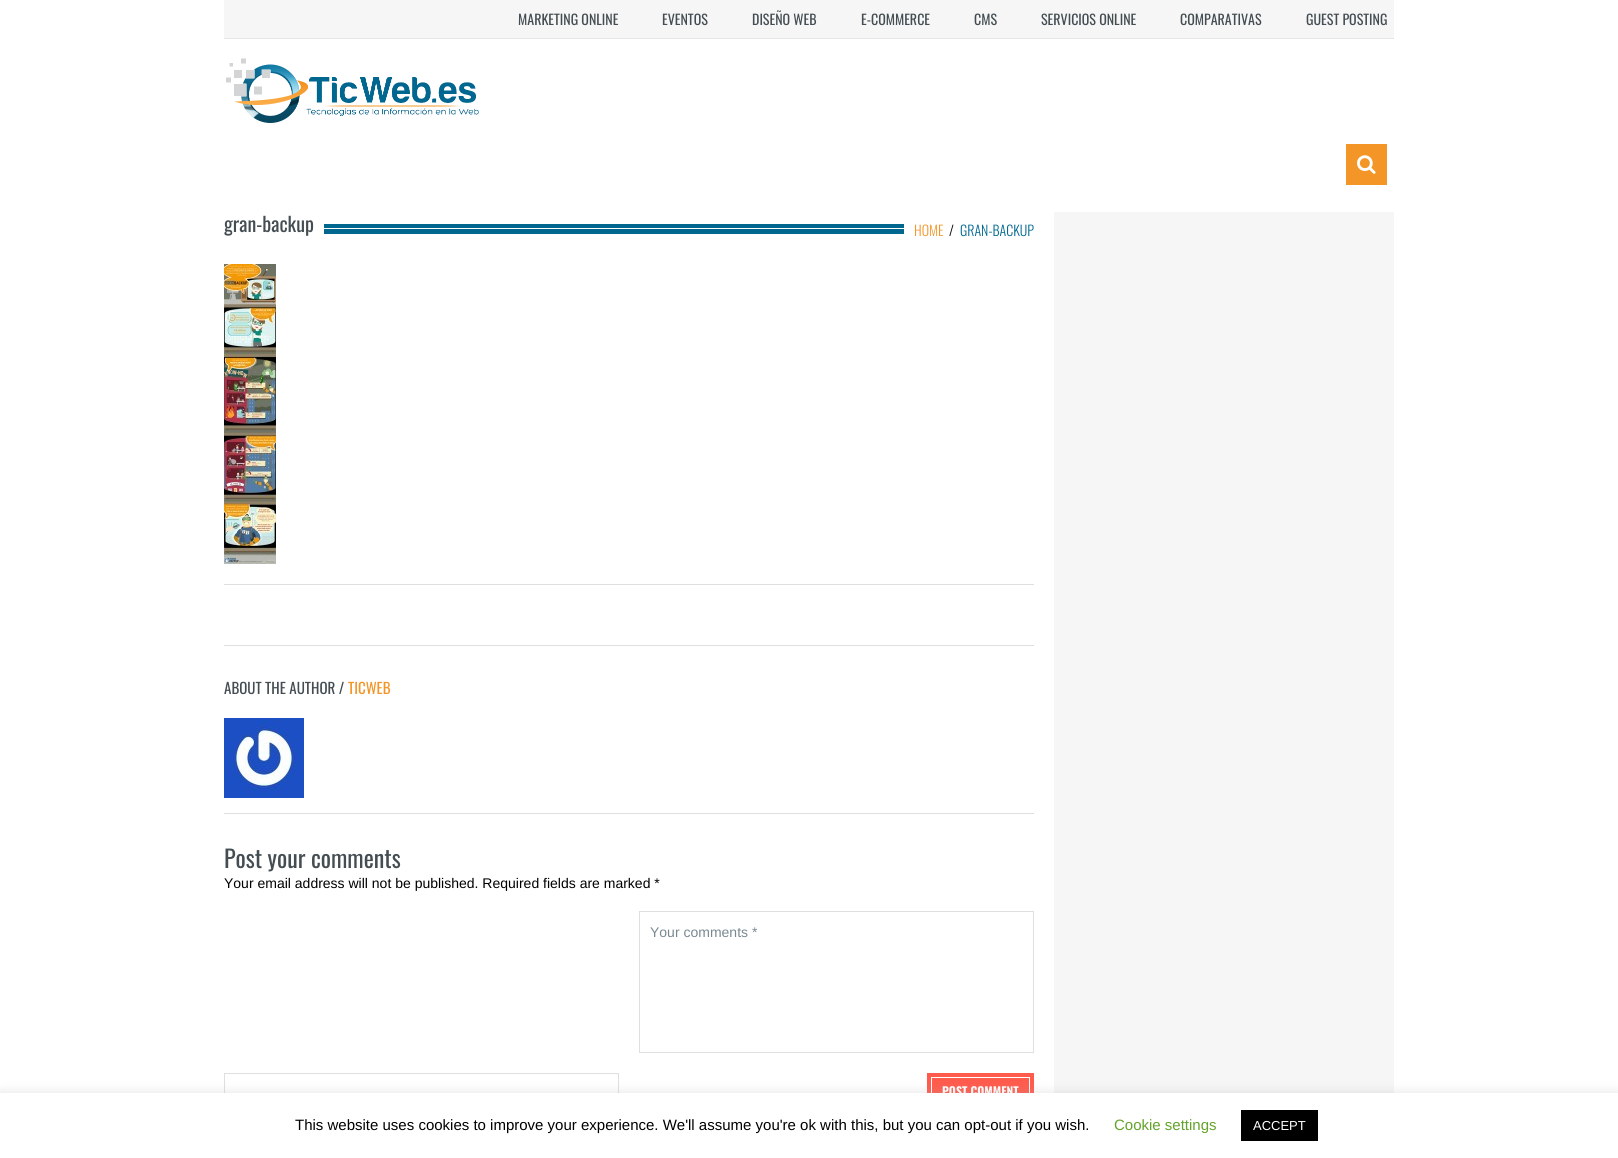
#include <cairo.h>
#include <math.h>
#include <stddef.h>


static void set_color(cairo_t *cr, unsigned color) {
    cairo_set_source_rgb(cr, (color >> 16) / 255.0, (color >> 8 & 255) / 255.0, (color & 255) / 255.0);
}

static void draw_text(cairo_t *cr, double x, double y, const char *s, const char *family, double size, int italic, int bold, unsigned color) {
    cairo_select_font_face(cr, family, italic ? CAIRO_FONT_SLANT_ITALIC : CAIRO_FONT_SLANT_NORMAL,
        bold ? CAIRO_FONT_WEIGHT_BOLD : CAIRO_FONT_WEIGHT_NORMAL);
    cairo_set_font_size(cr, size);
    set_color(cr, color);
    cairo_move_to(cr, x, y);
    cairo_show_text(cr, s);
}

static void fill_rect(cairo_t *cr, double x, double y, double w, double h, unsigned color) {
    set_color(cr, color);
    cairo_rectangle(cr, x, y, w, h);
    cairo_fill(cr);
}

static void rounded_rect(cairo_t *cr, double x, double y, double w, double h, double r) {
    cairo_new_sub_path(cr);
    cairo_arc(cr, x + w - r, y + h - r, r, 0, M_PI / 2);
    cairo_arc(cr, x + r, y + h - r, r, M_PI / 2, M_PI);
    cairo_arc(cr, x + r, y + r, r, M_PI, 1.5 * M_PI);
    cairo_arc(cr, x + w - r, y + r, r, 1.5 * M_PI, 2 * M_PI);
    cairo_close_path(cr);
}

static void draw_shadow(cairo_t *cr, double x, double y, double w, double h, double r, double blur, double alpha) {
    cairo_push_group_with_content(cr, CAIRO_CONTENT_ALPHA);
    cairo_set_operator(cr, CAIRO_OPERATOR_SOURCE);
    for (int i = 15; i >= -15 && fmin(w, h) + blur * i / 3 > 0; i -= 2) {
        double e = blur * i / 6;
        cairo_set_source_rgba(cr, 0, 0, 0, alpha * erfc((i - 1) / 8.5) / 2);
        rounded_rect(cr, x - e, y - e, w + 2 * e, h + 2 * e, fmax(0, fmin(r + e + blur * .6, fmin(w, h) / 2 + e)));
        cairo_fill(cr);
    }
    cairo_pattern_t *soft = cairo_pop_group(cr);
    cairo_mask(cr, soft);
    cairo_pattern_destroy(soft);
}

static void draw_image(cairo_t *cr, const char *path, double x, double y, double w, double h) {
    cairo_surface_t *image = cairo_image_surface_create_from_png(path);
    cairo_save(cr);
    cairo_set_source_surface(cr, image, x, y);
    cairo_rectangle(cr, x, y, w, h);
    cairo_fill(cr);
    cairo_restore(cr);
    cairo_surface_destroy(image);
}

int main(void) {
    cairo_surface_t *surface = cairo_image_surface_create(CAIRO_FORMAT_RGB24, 1618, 1158);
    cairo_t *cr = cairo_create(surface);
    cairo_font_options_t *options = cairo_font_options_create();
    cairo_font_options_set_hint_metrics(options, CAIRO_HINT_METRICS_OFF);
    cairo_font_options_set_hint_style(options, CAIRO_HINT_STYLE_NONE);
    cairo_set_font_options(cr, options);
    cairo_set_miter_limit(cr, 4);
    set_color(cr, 0xFFFFFF);
    cairo_paint(cr);
    fill_rect(cr, 224, 0, 1170, 38, 0xF6F6F6);
    fill_rect(cr, 224, 38, 1170, 1, 0xE6E6E6);
    draw_text(cr, 518, 25, "MARKETING ONLINE", "Oswald", 14, 0, 0, 0x444D52);
    draw_text(cr, 662, 25, "EVENTOS", "Oswald", 14, 0, 0, 0x444D52);
    draw_text(cr, 752, 25, "DISEÑO WEB", "Oswald", 14, 0, 0, 0x444D52);
    draw_text(cr, 861, 25, "E-COMMERCE", "Oswald", 14, 0, 0, 0x444D52);
    draw_text(cr, 974, 25, "CMS", "Oswald", 14, 0, 0, 0x444D52);
    draw_text(cr, 1041, 25, "SERVICIOS ONLINE", "Oswald", 14, 0, 0, 0x444D52);
    draw_text(cr, 1180, 25, "COMPARATIVAS", "Oswald", 14, 0, 0, 0x444D52);
    draw_text(cr, 1306, 25, "GUEST POSTING", "Oswald", 14, 0, 0, 0x444D52);
    draw_image(cr, "assets/img1.png", 226, 58, 253, 65);
    fill_rect(cr, 1346, 144, 41, 41, 0xF39627);
    draw_image(cr, "assets/img2.png", 1357, 155, 19, 19);
    draw_text(cr, 224, 232, "gran-backup", "Oswald", 20, 0, 0, 0x444D52);
    fill_rect(cr, 324, 224, 580, 10, 0x00678F);
    fill_rect(cr, 324, 228, 580, 1, 0xFFFFFF);
    draw_image(cr, "assets/img3.png", 224, 264, 52, 300);
    fill_rect(cr, 224, 584, 810, 1, 0xDFDFDF);
    fill_rect(cr, 224, 645, 810, 1, 0xDFDFDF);
    draw_text(cr, 914, 236, "HOME", "Oswald Light", 14, 0, 0, 0xF39528);
    draw_text(cr, 949, 236, "/", "Oswald Light", 14, 0, 0, 0x000000);
    draw_text(cr, 960, 236, "GRAN-BACKUP", "Oswald Light", 14, 0, 0, 0x00678F);
    fill_rect(cr, 1054, 212, 340, 881, 0xF6F6F6);
    fill_rect(cr, 224, 813, 810, 1, 0xDFDFDF);
    draw_text(cr, 224, 694, "ABOUT THE AUTHOR /", "Oswald", 15, 0, 0, 0x444D52);
    draw_text(cr, 348, 694, "TICWEB", "Oswald", 15, 0, 0, 0xF39528);
    draw_image(cr, "assets/img4.png", 224, 718, 80, 80);
    draw_text(cr, 224, 868, "Post your comments", "Oswald", 24, 0, 0, 0x444D52);
    draw_text(cr, 224, 888, "Your email address will not be published. Required fields are marked *", "Liberation Sans", 14, 0, 0, 0x000000);
    cairo_rectangle(cr, 639.5, 911.5, 394, 141);
    set_color(cr, 0xDFDFDF);
    cairo_set_line_width(cr, 1);
    cairo_stroke(cr);
    draw_text(cr, 650, 937, "Your comments *", "Liberation Sans", 14, 0, 0, 0x798992);
    cairo_rectangle(cr, 224.5, 1073.5, 394, 39);
    set_color(cr, 0xDFDFDF);
    cairo_stroke(cr);
    fill_rect(cr, 927, 1073, 107, 20, 0xFF5B4D);
    cairo_rectangle(cr, 931.5, 1077.5, 98, 27);
    set_color(cr, 0xFFFFFF);
    cairo_stroke(cr);
    draw_text(cr, 942, 1096, "POST COMMENT", "Oswald", 12, 0, 1, 0xFFFFFF);
    set_color(cr, 0xACABAB);
    draw_shadow(cr, 0, 1092, 1618, 65, 0, 5, 0.3);
    fill_rect(cr, 0, 1093, 1618, 65, 0xFFFFFF);
    draw_text(cr, 295, 1130, "This website uses cookies to improve your experience. We'll assume you're ok with this, but you can opt-out if you wish.", "Liberation Sans", 15, 0, 0, 0x000000);
    draw_text(cr, 1114, 1130, "Cookie settings", "Liberation Sans", 15, 0, 0, 0x62A329);
    fill_rect(cr, 1241, 1110, 77, 31, 0x000000);
    draw_text(cr, 1253, 1130, "ACCEPT", "Liberation Sans", 13, 0, 0, 0xFFFFFF);
    cairo_surface_write_to_png(surface, "output.png");
    cairo_font_options_destroy(options);
    cairo_destroy(cr);
    cairo_surface_destroy(surface);
    return 0;
}
